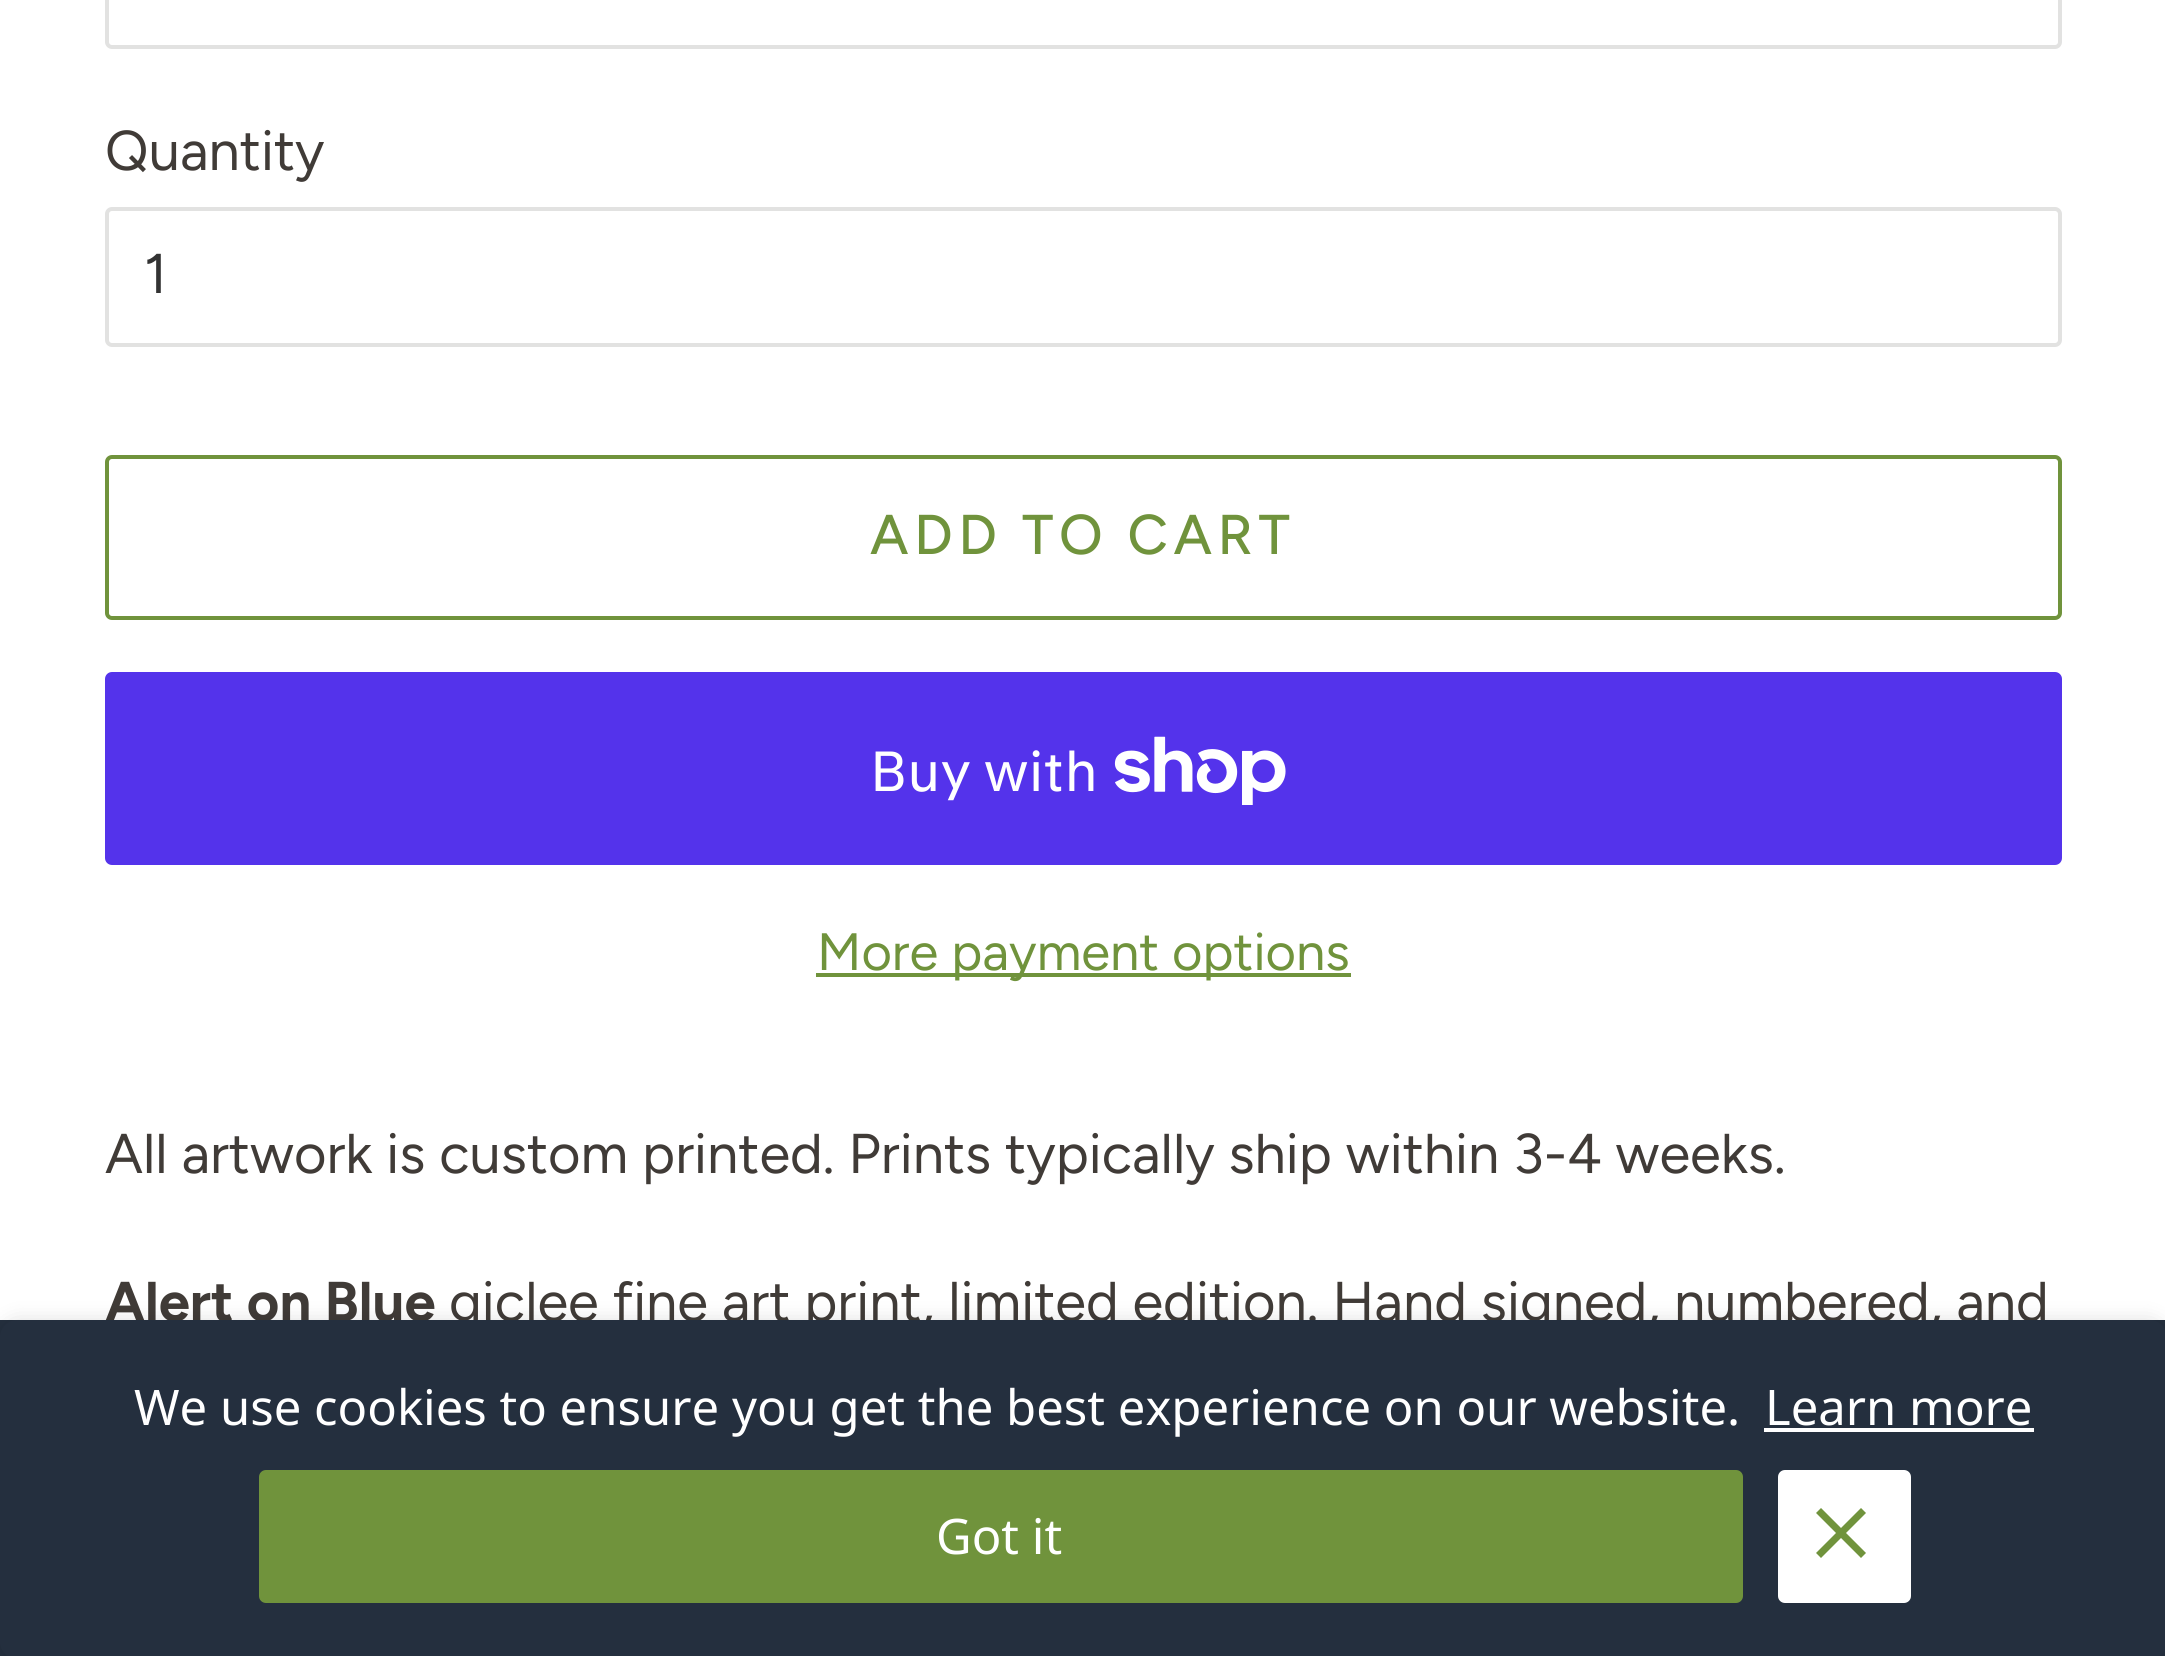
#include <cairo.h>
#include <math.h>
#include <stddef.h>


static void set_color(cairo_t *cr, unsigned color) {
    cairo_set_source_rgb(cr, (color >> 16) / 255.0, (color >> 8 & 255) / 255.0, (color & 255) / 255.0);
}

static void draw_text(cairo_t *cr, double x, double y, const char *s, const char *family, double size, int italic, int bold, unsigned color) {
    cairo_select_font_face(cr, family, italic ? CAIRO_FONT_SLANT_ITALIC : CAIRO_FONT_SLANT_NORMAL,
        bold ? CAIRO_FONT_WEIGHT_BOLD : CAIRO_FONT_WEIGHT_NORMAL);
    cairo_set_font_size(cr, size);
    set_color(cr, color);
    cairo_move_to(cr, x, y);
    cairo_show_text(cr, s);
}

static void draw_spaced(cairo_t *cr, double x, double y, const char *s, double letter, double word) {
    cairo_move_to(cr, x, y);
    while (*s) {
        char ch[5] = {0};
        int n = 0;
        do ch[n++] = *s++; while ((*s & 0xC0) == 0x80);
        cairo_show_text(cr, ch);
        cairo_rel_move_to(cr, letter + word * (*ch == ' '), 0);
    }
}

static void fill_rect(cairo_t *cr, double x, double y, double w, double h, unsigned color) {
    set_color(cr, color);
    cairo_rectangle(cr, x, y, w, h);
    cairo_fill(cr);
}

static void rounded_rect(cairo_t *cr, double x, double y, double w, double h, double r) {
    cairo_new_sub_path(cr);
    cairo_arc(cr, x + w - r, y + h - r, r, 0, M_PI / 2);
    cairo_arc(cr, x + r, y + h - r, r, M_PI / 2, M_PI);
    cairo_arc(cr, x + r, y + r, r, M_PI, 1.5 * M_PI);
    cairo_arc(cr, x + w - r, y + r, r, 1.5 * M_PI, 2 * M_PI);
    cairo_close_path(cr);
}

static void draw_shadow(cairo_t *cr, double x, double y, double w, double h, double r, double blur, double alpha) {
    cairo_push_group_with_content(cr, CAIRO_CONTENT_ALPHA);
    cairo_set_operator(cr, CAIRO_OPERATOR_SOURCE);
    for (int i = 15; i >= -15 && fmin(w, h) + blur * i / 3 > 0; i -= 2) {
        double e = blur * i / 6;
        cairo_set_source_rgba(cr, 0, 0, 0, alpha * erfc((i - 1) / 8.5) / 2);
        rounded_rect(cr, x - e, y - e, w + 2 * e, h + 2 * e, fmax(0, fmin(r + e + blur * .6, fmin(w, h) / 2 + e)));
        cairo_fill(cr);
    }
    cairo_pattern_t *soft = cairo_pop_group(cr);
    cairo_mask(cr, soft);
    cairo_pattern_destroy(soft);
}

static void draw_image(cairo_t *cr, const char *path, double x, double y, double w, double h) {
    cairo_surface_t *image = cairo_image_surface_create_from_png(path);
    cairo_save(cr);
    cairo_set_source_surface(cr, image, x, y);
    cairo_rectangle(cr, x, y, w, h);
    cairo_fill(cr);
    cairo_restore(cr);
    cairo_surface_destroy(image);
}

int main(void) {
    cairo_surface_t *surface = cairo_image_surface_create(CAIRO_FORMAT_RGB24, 2165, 1656);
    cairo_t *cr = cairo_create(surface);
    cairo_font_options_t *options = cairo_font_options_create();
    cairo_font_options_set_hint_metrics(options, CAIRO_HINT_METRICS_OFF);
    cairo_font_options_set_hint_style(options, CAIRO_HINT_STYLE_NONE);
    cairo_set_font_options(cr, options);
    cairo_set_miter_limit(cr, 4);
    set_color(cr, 0xFFFFFF);
    cairo_paint(cr);
    rounded_rect(cr, 107, -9, 1953, 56, 5);
    set_color(cr, 0xE2E2E1);
    cairo_set_line_width(cr, 4);
    cairo_stroke(cr);
    draw_text(cr, 105, 170, "Quantity", "Figtree", 56, 0, 0, 0x403B37);
    rounded_rect(cr, 107, 209, 1953, 136, 5);
    set_color(cr, 0xE2E2E1);
    cairo_stroke(cr);
    draw_text(cr, 144, 293, "1", "Figtree", 56, 0, 0, 0x333333);
    rounded_rect(cr, 107, 457, 1953, 161, 5);
    set_color(cr, 0x70933C);
    cairo_stroke(cr);
    cairo_select_font_face(cr, "Figtree Medium", CAIRO_FONT_SLANT_NORMAL, CAIRO_FONT_WEIGHT_NORMAL);
    draw_spaced(cr, 870, 554, "ADD TO CART", 5.6, 0);
    set_color(cr, 0x5433EB);
    rounded_rect(cr, 105, 672, 1957, 193, 7);
    cairo_fill(cr);
    draw_text(cr, 870, 791, "Buy with", "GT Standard", 56, 0, 0, 0xFFFFFF);
    draw_image(cr, "assets/img1.png", 1114, 736, 172, 69);
    fill_rect(cr, 816, 973, 535, 4, 0x70933C);
    draw_text(cr, 817, 970, "More payment options", "Figtree", 52.5, 0, 0, 0x70933C);
    draw_text(cr, 105, 1173, "All artwork is custom printed. Prints typically ship within 3-4 weeks.", "Figtree", 56, 0, 0, 0x403B37);
    draw_text(cr, 105, 1321, "Alert on Blue", "Figtree", 56, 0, 1, 0x403B37);
    draw_text(cr, 449, 1321, "giclee fine art print, limited edition. Hand signed, numbered, and", "Figtree", 56, 0, 0, 0x403B37);
    fill_rect(cr, 0, 1320, 2165, 336, 0x242F3E);
    cairo_save(cr);
    cairo_set_fill_rule(cr, CAIRO_FILL_RULE_EVEN_ODD);
    cairo_new_path(cr);
    cairo_move_to(cr, 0, 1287);
    cairo_line_to(cr, 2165, 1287);
    cairo_line_to(cr, 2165, 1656);
    cairo_line_to(cr, 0, 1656);
    cairo_close_path(cr);
    cairo_move_to(cr, 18, 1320);
    cairo_line_to(cr, 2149, 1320);
    cairo_curve_to(cr, 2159, 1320, 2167, 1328, 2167, 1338);
    cairo_line_to(cr, 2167, 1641);
    cairo_curve_to(cr, 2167, 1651, 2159, 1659, 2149, 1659);
    cairo_line_to(cr, 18, 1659);
    cairo_curve_to(cr, 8, 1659, 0, 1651, 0, 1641);
    cairo_line_to(cr, 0, 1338);
    cairo_curve_to(cr, 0, 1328, 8, 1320, 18, 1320);
    cairo_close_path(cr);
    cairo_clip(cr);
    set_color(cr, 0x000000);
    draw_shadow(cr, 0, 1320, 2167, 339, 18, 10.5, 0.12);
    cairo_restore(cr);
    draw_text(cr, 134, 1425, "We use cookies to ensure you get the best experience on our website.", "Noto Sans", 49, 0, 0, 0xFFFFFF);
    draw_text(cr, 1765, 1425, "Learn more", "Noto Sans", 49, 0, 0, 0xFFFFFF);
    fill_rect(cr, 1764, 1428, 270, 4, 0xFFFFFF);
    set_color(cr, 0x70933C);
    rounded_rect(cr, 259, 1470, 1484, 133, 7);
    cairo_fill(cr);
    draw_text(cr, 936, 1554, "Got it", "Noto Sans", 49, 0, 0, 0xFFFFFF);
    rounded_rect(cr, 1778, 1470, 133, 133, 7);
    cairo_fill(cr);
    set_color(cr, 0x70933C);
    cairo_new_path(cr);
    cairo_move_to(cr, 1866, 1513);
    cairo_line_to(cr, 1861, 1508);
    cairo_line_to(cr, 1841, 1528);
    cairo_line_to(cr, 1821, 1508);
    cairo_line_to(cr, 1816, 1513);
    cairo_line_to(cr, 1836, 1533);
    cairo_line_to(cr, 1816, 1553);
    cairo_line_to(cr, 1821, 1558);
    cairo_line_to(cr, 1841, 1538);
    cairo_line_to(cr, 1861, 1558);
    cairo_line_to(cr, 1866, 1553);
    cairo_line_to(cr, 1846, 1533);
    cairo_close_path(cr);
    cairo_fill(cr);
    cairo_surface_write_to_png(surface, "output.png");
    cairo_font_options_destroy(options);
    cairo_destroy(cr);
    cairo_surface_destroy(surface);
    return 0;
}
